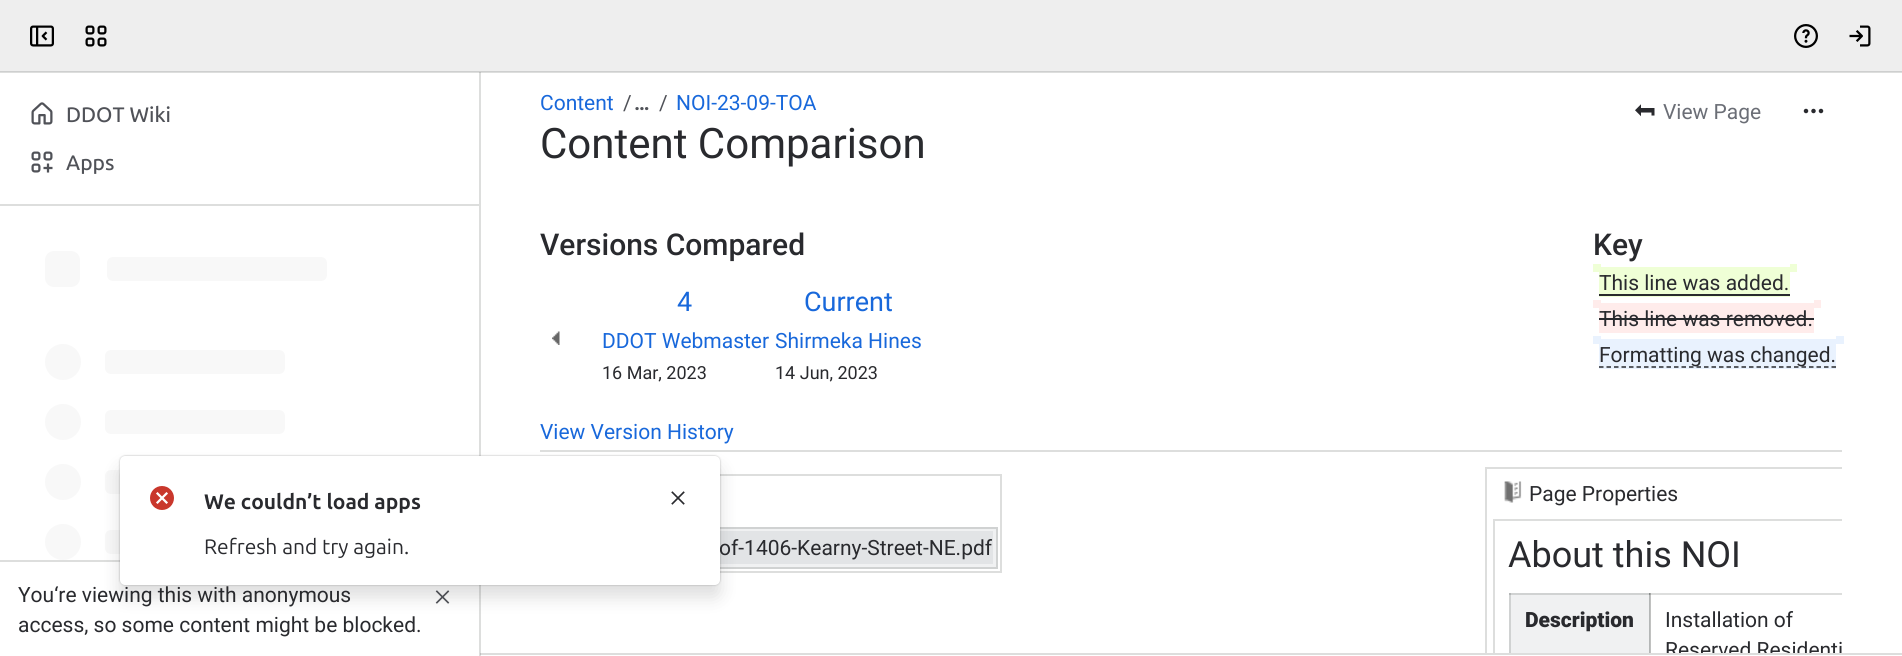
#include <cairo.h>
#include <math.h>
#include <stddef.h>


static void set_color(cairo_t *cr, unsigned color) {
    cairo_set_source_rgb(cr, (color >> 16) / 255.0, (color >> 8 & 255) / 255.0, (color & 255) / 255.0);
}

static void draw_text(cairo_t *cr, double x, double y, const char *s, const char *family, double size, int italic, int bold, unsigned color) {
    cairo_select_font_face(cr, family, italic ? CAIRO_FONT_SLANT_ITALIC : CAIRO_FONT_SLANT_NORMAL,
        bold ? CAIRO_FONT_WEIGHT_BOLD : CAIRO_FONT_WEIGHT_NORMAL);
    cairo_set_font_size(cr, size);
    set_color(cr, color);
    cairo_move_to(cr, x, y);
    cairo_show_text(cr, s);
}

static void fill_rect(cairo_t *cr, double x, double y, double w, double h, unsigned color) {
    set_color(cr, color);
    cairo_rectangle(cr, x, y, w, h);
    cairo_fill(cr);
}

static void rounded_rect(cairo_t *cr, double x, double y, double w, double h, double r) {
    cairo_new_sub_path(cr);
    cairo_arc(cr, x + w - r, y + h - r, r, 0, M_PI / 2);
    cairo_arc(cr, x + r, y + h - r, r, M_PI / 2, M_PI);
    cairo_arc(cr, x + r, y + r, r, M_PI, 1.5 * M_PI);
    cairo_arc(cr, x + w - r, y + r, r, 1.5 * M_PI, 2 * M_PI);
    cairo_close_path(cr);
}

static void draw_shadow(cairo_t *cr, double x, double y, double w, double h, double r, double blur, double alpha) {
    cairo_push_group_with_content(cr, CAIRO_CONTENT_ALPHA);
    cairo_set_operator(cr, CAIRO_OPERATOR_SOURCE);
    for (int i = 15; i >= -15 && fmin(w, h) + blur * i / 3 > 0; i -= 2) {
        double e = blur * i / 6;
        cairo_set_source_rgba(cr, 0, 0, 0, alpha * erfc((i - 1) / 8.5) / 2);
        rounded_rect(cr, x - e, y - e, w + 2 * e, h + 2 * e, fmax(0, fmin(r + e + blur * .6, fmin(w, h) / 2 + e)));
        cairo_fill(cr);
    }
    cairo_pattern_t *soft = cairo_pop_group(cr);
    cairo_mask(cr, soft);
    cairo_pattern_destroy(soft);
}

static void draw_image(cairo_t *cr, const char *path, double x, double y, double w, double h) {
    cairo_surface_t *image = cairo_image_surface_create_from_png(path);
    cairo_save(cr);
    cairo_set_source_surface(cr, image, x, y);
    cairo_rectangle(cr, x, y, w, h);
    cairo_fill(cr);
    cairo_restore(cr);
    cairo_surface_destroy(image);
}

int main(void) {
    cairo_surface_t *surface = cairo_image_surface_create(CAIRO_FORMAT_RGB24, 1902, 656);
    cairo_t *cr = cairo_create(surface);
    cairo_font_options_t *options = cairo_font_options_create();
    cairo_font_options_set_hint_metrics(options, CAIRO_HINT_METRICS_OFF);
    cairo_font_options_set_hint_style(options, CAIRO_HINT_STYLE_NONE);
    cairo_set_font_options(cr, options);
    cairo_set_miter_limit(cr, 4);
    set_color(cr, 0xFFFFFF);
    cairo_paint(cr);
    fill_rect(cr, 0, 72, 1902, 1, 0xDDDEDD);
    fill_rect(cr, 479, 72, 2, 584, 0xDDDEDD);
    fill_rect(cr, 479, 72, 2, 1, 0xC0C1C0);
    fill_rect(cr, 1650, 593, 1, 60, 0xC0C1C0);
    fill_rect(cr, 1649, 593, 193, 2, 0xDDDEDD);
    fill_rect(cr, 1649, 593, 2, 2, 0xA7A9A7);
    fill_rect(cr, 0, 0, 1902, 71, 0xEEEEEE);
    fill_rect(cr, 0, 71, 1902, 1, 0xCECFCF);
    draw_image(cr, "assets/img1.png", 30, 25, 24, 22);
    draw_image(cr, "assets/img2.png", 85, 25, 22, 22);
    draw_image(cr, "assets/img3.png", 1794, 24, 24, 24);
    draw_image(cr, "assets/img4.png", 1849, 25, 22, 22);
    draw_image(cr, "assets/img5.png", 31, 102, 22, 23);
    draw_text(cr, 66, 122, "DDOT Wiki", "Ubuntu Medium", 21, 0, 0, 0x505258);
    draw_image(cr, "assets/img6.png", 31, 151, 22, 22);
    draw_text(cr, 66, 170, "Apps", "Ubuntu Medium", 21, 0, 0, 0x505258);
    fill_rect(cr, 0, 204, 479, 2, 0xDDDEDD);
    set_color(cr, 0xF8F8F8);
    rounded_rect(cr, 45, 251, 35, 36, 9);
    cairo_fill(cr);
    rounded_rect(cr, 107, 257, 220, 24, 6);
    cairo_fill(cr);
    cairo_arc(cr, 63, 362, 18, 0, 2 * M_PI);
    cairo_fill(cr);
    rounded_rect(cr, 105, 350, 180, 24, 6);
    cairo_fill(cr);
    cairo_arc(cr, 63, 422, 18, 0, 2 * M_PI);
    cairo_fill(cr);
    rounded_rect(cr, 105, 410, 180, 24, 6);
    cairo_fill(cr);
    cairo_arc(cr, 63, 482, 18, 0, 2 * M_PI);
    cairo_fill(cr);
    rounded_rect(cr, 105, 470, 180, 24, 6);
    cairo_fill(cr);
    cairo_arc(cr, 63, 542, 18, 0, 2 * M_PI);
    cairo_fill(cr);
    rounded_rect(cr, 105, 530, 180, 24, 6);
    cairo_fill(cr);
    fill_rect(cr, 0, 560, 120, 2, 0xDDDEDD);
    draw_text(cr, 18, 602, "You‘re viewing this with anonymous", "Roboto", 21, 0, 0, 0x292A2E);
    draw_text(cr, 18, 632, "access, so some content might be blocked.", "Roboto", 21, 0, 0, 0x292A2E);
    draw_image(cr, "assets/img7.png", 435, 590, 15, 14);
    fill_rect(cr, 480, 653, 1422, 2, 0xDDDEDD);
    fill_rect(cr, 480, 653, 1, 2, 0xC0C1C0);
    draw_text(cr, 540, 110, "Content", "Roboto", 21, 0, 0, 0x1868DB);
    draw_text(cr, 623, 110, "/", "Roboto", 21, 0, 0, 0x505258);
    draw_text(cr, 634, 110, "…", "Roboto", 21, 0, 1, 0x505258);
    draw_text(cr, 659, 110, "/", "Roboto", 21, 0, 0, 0x505258);
    draw_text(cr, 676, 110, "NOI-23-09-TOA", "Roboto", 21, 0, 0, 0x1868DB);
    draw_text(cr, 540, 158, "Content Comparison", "Roboto", 42, 0, 0, 0x292A2E);
    draw_image(cr, "assets/img8.png", 1635, 104, 20, 13);
    draw_text(cr, 1663, 119, "View Page", "Roboto", 21, 0, 0, 0x6B6E76);
    draw_image(cr, "assets/img9.png", 1803, 108, 21, 6);
    fill_rect(cr, 540, 450, 1302, 2, 0xDDDEDD);
    draw_text(cr, 540, 255, "Versions Compared", "Roboto Medium", 30, 0, 0, 0x292A2E);
    draw_text(cr, 1593, 255, "Key", "Roboto Medium", 30, 0, 0, 0x292A2E);
    fill_rect(cr, 1593, 264, 8, 8, 0xEFFFD6);
    fill_rect(cr, 1599, 267, 191, 30, 0xEFFFD6);
    draw_text(cr, 1599, 290, "This line was added.", "Roboto", 21, 0, 0, 0x292A2E);
    fill_rect(cr, 1790, 264, 7, 8, 0xEFFFD6);
    fill_rect(cr, 1599, 294, 191, 2, 0x292A2E);
    fill_rect(cr, 1593, 300, 8, 8, 0xFFECEB);
    fill_rect(cr, 1599, 303, 215, 30, 0xFFECEB);
    draw_text(cr, 1599, 326, "This line was removed.", "Roboto", 21, 0, 0, 0x292A2E);
    fill_rect(cr, 1814, 300, 7, 8, 0xFFECEB);
    fill_rect(cr, 1599, 318, 215, 2, 0x292A2E);
    fill_rect(cr, 1593, 336, 8, 8, 0xE9F2FE);
    fill_rect(cr, 1599, 339, 237, 30, 0xE9F2FE);
    cairo_new_path(cr);
    cairo_move_to(cr, 1599, 367);
    cairo_line_to(cr, 1836, 367);
    set_color(cr, 0x292A2E);
    cairo_set_line_width(cr, 1.5);
    cairo_set_dash(cr, (double[]){4.5, 3}, 2, 0);
    cairo_stroke(cr);
    draw_text(cr, 1599, 362, "Formatting was changed.", "Roboto", 21, 0, 0, 0x292A2E);
    fill_rect(cr, 1836, 336, 8, 8, 0xE9F2FE);
    draw_text(cr, 677, 311, "4", "Roboto", 27, 0, 0, 0x1868DB);
    draw_text(cr, 804, 311, "Current", "Roboto", 27, 0, 0, 0x1868DB);
    draw_text(cr, 602, 348, "DDOT Webmaster", "Roboto", 21, 0, 0, 0x1868DB);
    draw_text(cr, 775, 348, "Shirmeka Hines", "Roboto", 21, 0, 0, 0x1868DB);
    draw_text(cr, 602, 379, "16 Mar, 2023", "Roboto", 18, 0, 0, 0x292A2E);
    draw_text(cr, 775, 379, "14 Jun, 2023", "Roboto", 18, 0, 0, 0x292A2E);
    draw_image(cr, "assets/img10.png", 552, 331, 8, 14);
    draw_text(cr, 540, 439, "View Version History", "Roboto", 21, 0, 0, 0x1868DB);
    cairo_rectangle(cr, 541, 475, 460, 97);
    set_color(cr, 0xDDDEDD);
    cairo_set_line_width(cr, 2);
    cairo_set_dash(cr, NULL, 0, 0);
    cairo_stroke(cr);
    fill_rect(cr, 720, 529, 276, 38, 0xF0F1F2);
    cairo_rectangle(cr, 546, 528, 451, 40);
    set_color(cr, 0xD0D2D2);
    cairo_stroke(cr);
    fill_rect(cr, 720, 531, 273, 33, 0xE2E4E6);
    draw_text(cr, 719, 555, "of-1406-Kearny-Street-NE.pdf", "Roboto", 21, 0, 0, 0x292A2E);
    cairo_save(cr);
    cairo_rectangle(cr, 1485, 467, 357, 186);
    cairo_clip(cr);
    cairo_rectangle(cr, 1486, 468, 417, 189);
    set_color(cr, 0xDDDEDD);
    cairo_stroke(cr);
    cairo_restore(cr);
    draw_image(cr, "assets/img11.png", 1504, 481, 18, 22);
    draw_text(cr, 1529, 501, "Page Properties", "Roboto", 21, 0, 0, 0x292A2E);
    cairo_save(cr);
    cairo_rectangle(cr, 1485, 467, 357, 186);
    cairo_clip(cr);
    cairo_rectangle(cr, 1494, 520, 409, 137);
    set_color(cr, 0xDDDEDD);
    cairo_stroke(cr);
    cairo_restore(cr);
    draw_text(cr, 1508, 567, "About this NOI", "Roboto", 36, 0, 0, 0x292A2E);
    fill_rect(cr, 1511, 595, 138, 58, 0xF0F1F2);
    fill_rect(cr, 1509, 593, 2, 60, 0xD0D2D2);
    fill_rect(cr, 1509, 593, 141, 2, 0xD0D2D2);
    fill_rect(cr, 1509, 593, 2, 2, 0xB4B7B7);
    fill_rect(cr, 1649, 593, 1, 60, 0xB4B7B7);
    fill_rect(cr, 1649, 593, 1, 2, 0x888C8B);
    draw_text(cr, 1525, 627, "Description", "Roboto Black", 21, 0, 0, 0x292A2E);
    draw_text(cr, 1665, 627, "Installation of", "Roboto", 21, 0, 0, 0x292A2E);
    cairo_save(cr);
    cairo_rectangle(cr, 1509, 593, 333, 60);
    cairo_clip(cr);
    draw_text(cr, 1665, 657, "Reserved Residenti", "Roboto", 21, 0, 0, 0x292A2E);
    cairo_restore(cr);
    set_color(cr, 0x1E1F21);
    draw_shadow(cr, 120, 456, 600, 129, 5, 1, 0.31);
    draw_shadow(cr, 120, 468, 600, 129, 5, 9, 0.15);
    set_color(cr, 0xFFFFFF);
    rounded_rect(cr, 120, 456, 600, 129, 5);
    cairo_fill(cr);
    draw_image(cr, "assets/img12.png", 150, 486, 24, 24);
    draw_text(cr, 204, 509, "We couldn’t load apps", "Ubuntu", 21, 0, 1, 0x292A2E);
    draw_image(cr, "assets/img13.png", 671, 491, 14, 14);
    draw_text(cr, 204, 554, "Refresh and try again.", "Ubuntu", 21, 0, 0, 0x292A2E);
    cairo_surface_write_to_png(surface, "output.png");
    cairo_font_options_destroy(options);
    cairo_destroy(cr);
    cairo_surface_destroy(surface);
    return 0;
}
